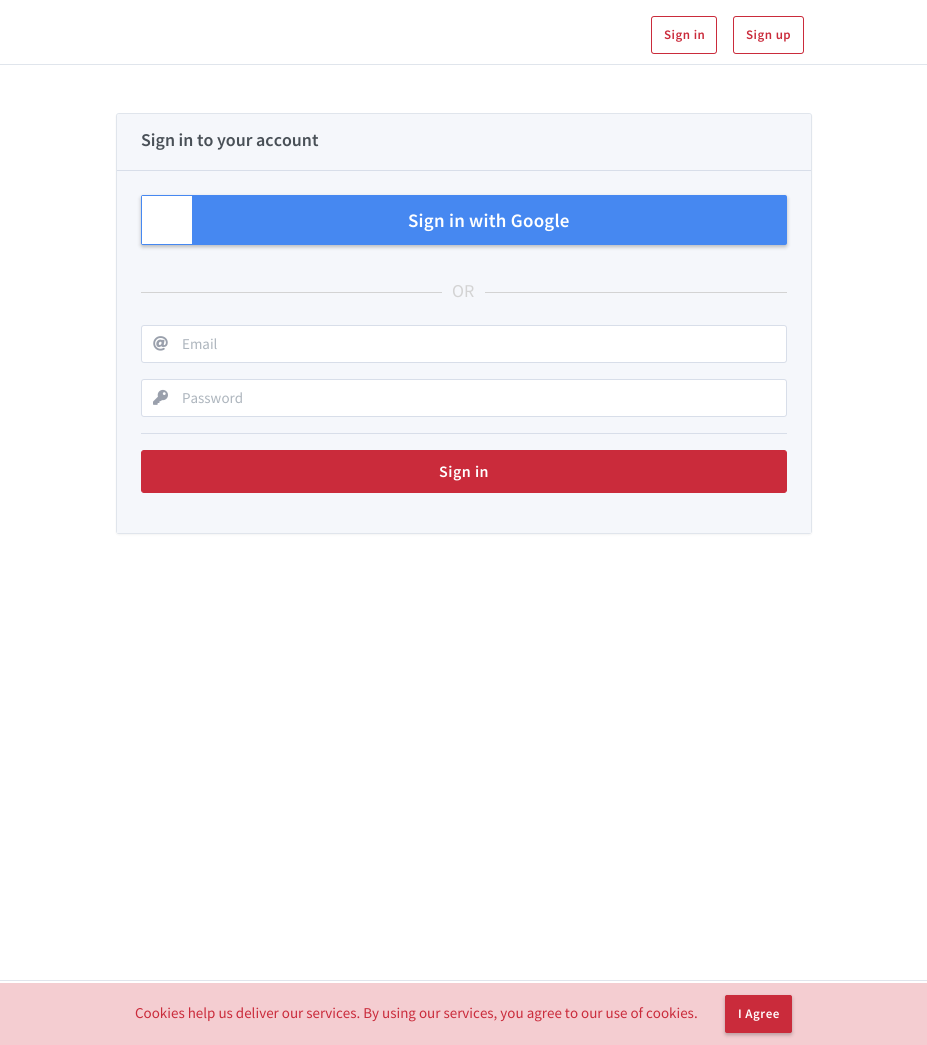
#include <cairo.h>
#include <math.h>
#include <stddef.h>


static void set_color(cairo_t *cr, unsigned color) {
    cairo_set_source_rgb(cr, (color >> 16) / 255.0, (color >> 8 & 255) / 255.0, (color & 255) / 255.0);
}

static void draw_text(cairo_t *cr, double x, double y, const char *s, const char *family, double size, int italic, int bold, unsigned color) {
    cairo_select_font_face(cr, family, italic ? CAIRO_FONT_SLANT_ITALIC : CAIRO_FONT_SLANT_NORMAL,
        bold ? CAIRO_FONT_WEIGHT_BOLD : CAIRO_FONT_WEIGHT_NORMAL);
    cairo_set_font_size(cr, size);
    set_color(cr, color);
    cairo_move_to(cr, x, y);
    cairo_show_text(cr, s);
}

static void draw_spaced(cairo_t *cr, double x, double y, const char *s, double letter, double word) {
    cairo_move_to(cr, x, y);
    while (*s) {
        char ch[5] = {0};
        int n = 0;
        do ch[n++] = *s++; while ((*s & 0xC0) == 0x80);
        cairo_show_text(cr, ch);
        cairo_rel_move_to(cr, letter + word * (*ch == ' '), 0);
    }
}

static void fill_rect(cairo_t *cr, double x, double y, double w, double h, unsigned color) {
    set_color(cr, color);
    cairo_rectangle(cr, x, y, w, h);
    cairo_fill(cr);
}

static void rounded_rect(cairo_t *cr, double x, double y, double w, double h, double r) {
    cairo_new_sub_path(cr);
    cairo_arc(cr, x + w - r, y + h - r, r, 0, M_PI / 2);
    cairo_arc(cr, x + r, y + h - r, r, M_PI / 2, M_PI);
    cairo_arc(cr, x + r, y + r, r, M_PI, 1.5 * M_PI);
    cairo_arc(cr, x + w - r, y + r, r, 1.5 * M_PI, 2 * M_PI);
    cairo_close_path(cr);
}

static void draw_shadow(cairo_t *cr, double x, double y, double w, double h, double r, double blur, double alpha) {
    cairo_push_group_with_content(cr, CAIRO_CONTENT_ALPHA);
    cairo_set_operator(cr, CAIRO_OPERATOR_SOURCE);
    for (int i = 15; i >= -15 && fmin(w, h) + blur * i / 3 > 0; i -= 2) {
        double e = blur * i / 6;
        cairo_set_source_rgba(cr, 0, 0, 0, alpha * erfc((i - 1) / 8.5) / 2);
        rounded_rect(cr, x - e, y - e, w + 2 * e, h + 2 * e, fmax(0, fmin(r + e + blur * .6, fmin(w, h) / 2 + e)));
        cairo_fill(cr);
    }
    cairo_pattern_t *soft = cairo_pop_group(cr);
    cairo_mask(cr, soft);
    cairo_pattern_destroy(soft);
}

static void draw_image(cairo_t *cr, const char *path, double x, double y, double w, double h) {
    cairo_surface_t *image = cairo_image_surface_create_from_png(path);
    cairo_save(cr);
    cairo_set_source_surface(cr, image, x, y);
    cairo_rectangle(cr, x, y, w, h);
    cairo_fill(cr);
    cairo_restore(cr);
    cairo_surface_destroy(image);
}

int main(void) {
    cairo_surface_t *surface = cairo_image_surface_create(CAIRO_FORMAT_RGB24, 927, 1045);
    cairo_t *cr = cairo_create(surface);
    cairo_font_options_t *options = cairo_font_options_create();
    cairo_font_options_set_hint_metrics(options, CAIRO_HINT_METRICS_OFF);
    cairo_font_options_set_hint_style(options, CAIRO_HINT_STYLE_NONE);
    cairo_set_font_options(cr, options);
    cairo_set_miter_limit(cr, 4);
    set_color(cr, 0xFFFFFF);
    cairo_paint(cr);
    fill_rect(cr, 0, 64, 927, 1, 0xE0E5EC);
    rounded_rect(cr, 651.5, 16.5, 65, 37, 2.5);
    set_color(cr, 0xCA2B3B);
    cairo_set_line_width(cr, 1);
    cairo_stroke(cr);
    cairo_select_font_face(cr, "Source Sans Pro SemiBold", CAIRO_FONT_SLANT_NORMAL, CAIRO_FONT_WEIGHT_NORMAL);
    cairo_set_font_size(cr, 13);
    draw_spaced(cr, 664, 39, "Sign in", 0.5, 0);
    rounded_rect(cr, 733.5, 16.5, 70, 37, 2.5);
    cairo_stroke(cr);
    draw_spaced(cr, 746, 39, "Sign up", 0.5, 0);
    set_color(cr, 0x000000);
    draw_shadow(cr, 116, 114, 696, 421, 3, 1, 0.05);
    rounded_rect(cr, 116.5, 113.5, 695, 420, 2.5);
    set_color(cr, 0xE0E5EC);
    cairo_stroke(cr);
    set_color(cr, 0xF5F7FB);
    cairo_new_path(cr);
    cairo_move_to(cr, 119, 114);
    cairo_line_to(cr, 809, 114);
    cairo_curve_to(cr, 810, 114, 811, 115, 811, 116);
    cairo_line_to(cr, 811, 171);
    cairo_line_to(cr, 117, 171);
    cairo_line_to(cr, 117, 116);
    cairo_curve_to(cr, 117, 115, 118, 114, 119, 114);
    cairo_close_path(cr);
    cairo_fill(cr);
    fill_rect(cr, 117, 170, 694, 1, 0xD8DEE9);
    draw_text(cr, 141, 146, "Sign in to your account", "Source Sans Pro SemiBold", 18, 0, 0, 0x495057);
    fill_rect(cr, 117, 171, 694, 362, 0xF5F7FB);
    set_color(cr, 0x000000);
    draw_shadow(cr, 141, 197, 646, 50, 2, 2, 0.25);
    set_color(cr, 0x4688F1);
    rounded_rect(cr, 141, 195, 646, 50, 2);
    cairo_fill(cr);
    fill_rect(cr, 142, 196, 50, 48, 0xFFFFFF);
    cairo_set_font_size(cr, 19);
    draw_spaced(cr, 408, 227, "Sign in with Google", 0.25, 0);
    fill_rect(cr, 141, 292, 646, 1, 0xD3D3D3);
    fill_rect(cr, 442, 292, 43, 1, 0xF5F7FB);
    draw_text(cr, 452, 297, "OR", "Source Sans Pro", 18, 0, 0, 0xD3D3D3);
    set_color(cr, 0xFFFFFF);
    rounded_rect(cr, 142, 326, 644, 36, 2);
    cairo_fill(cr);
    rounded_rect(cr, 141.5, 325.5, 645, 37, 2.5);
    cairo_set_source_rgba(cr, 0, 0.157, 0.392, 0.12);
    cairo_stroke(cr);
    draw_image(cr, "assets/img1.png", 153, 336, 15, 15);
    draw_text(cr, 182, 349, "Email", "Source Sans Pro", 15, 0, 0, 0xADB5BD);
    set_color(cr, 0xFFFFFF);
    rounded_rect(cr, 142, 380, 644, 36, 2);
    cairo_fill(cr);
    rounded_rect(cr, 141.5, 379.5, 645, 37, 2.5);
    cairo_set_source_rgba(cr, 0, 0.157, 0.392, 0.12);
    cairo_stroke(cr);
    draw_image(cr, "assets/img2.png", 153, 389, 15, 16);
    draw_text(cr, 182, 403, "Password", "Source Sans Pro", 15, 0, 0, 0xADB5BD);
    fill_rect(cr, 141, 433, 646, 1, 0xD8DEE9);
    set_color(cr, 0xCA2B3B);
    rounded_rect(cr, 141.5, 450.5, 645, 42, 2.5);
    cairo_fill_preserve(cr);
    cairo_stroke(cr);
    cairo_select_font_face(cr, "Source Sans Pro SemiBold", CAIRO_FONT_SLANT_NORMAL, CAIRO_FONT_WEIGHT_NORMAL);
    cairo_set_font_size(cr, 16);
    set_color(cr, 0xFFFFFF);
    draw_spaced(cr, 439, 477, "Sign in", 0.5, 0);
    fill_rect(cr, 0, 980, 927, 1, 0xE0E5EC);
    fill_rect(cr, 0, 983, 927, 62, 0xF4CDD1);
    draw_text(cr, 135, 1018, "Cookies help us deliver our services. By using our services, you agree to our use of cookies.", "Source Sans Pro", 15, 0, 0, 0xCA2B3B);
    set_color(cr, 0x000000);
    draw_shadow(cr, 725, 997, 67, 38, 2, 2, 0.25);
    set_color(cr, 0xCA2B3B);
    rounded_rect(cr, 725.5, 995.5, 66, 37, 1.5);
    cairo_fill_preserve(cr);
    cairo_stroke(cr);
    cairo_select_font_face(cr, "Source Sans Pro SemiBold", CAIRO_FONT_SLANT_NORMAL, CAIRO_FONT_WEIGHT_NORMAL);
    cairo_set_font_size(cr, 13);
    set_color(cr, 0xFFFFFF);
    draw_spaced(cr, 738, 1018, "I Agree", 0.5, 0);
    cairo_surface_write_to_png(surface, "output.png");
    cairo_font_options_destroy(options);
    cairo_destroy(cr);
    cairo_surface_destroy(surface);
    return 0;
}
